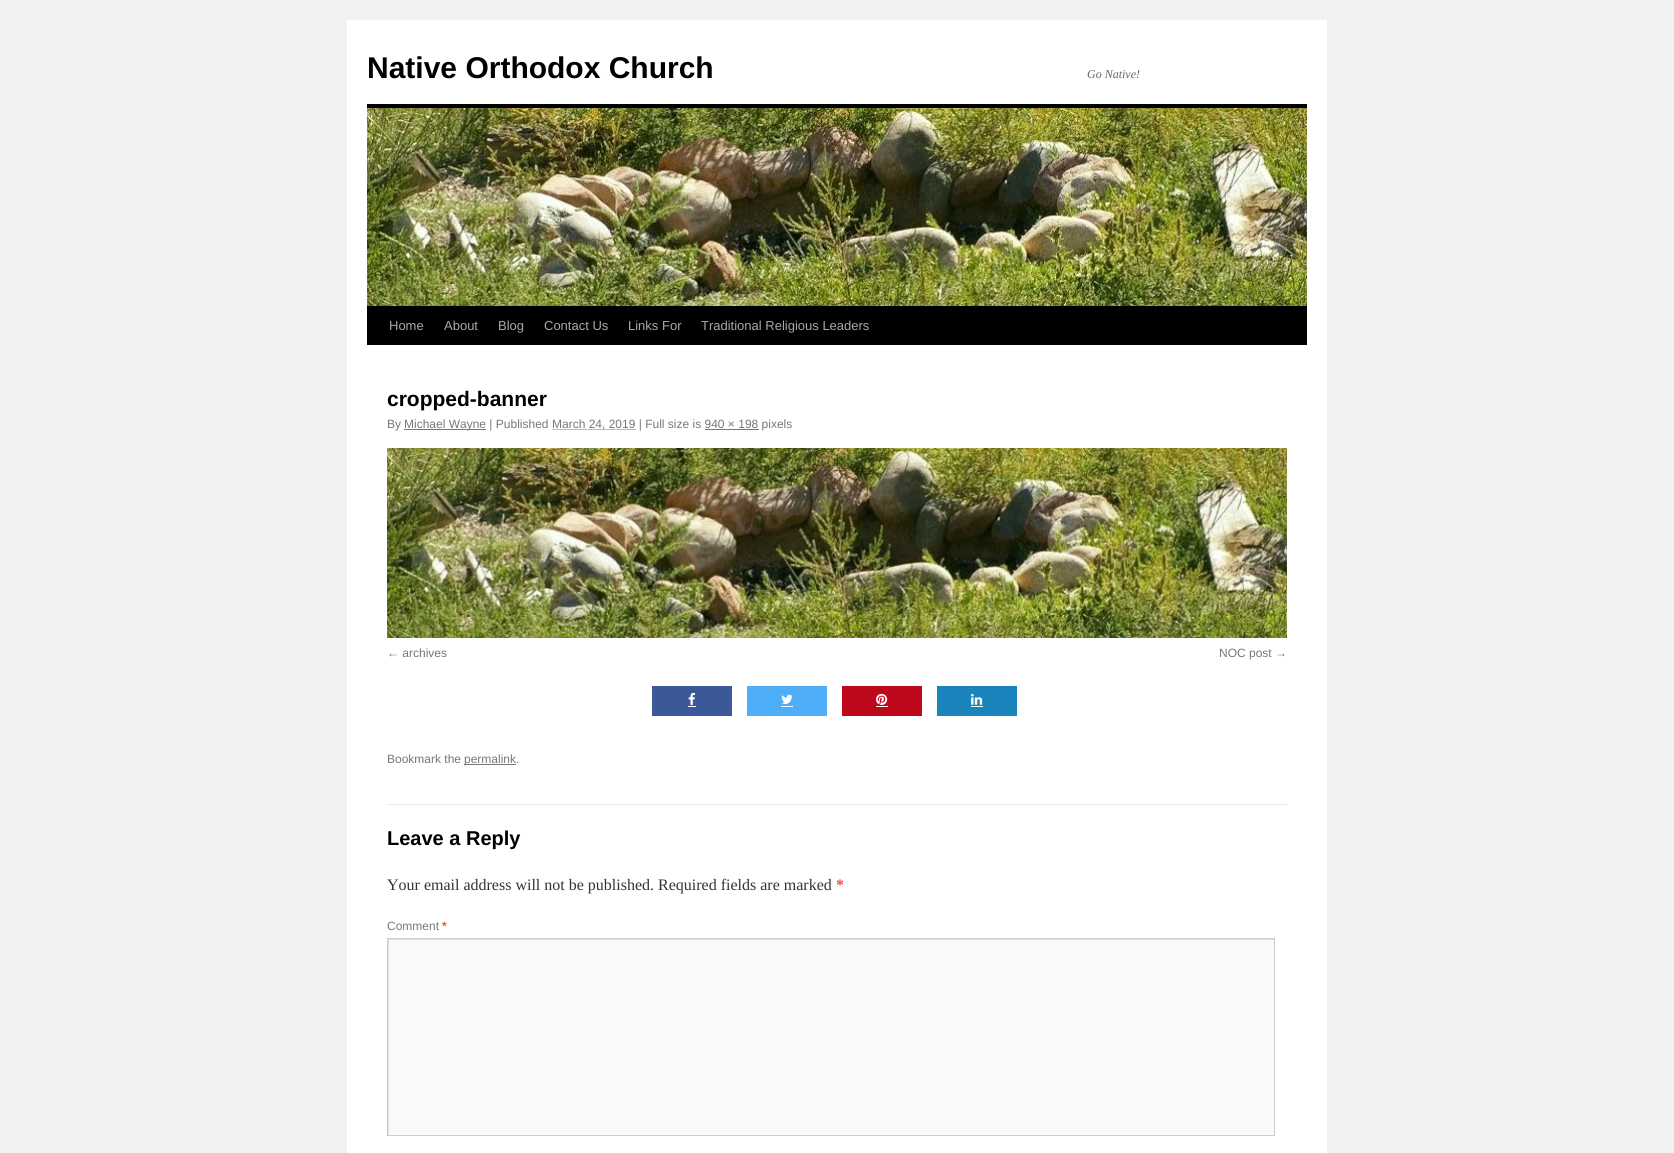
#include <cairo.h>
#include <math.h>
#include <stddef.h>


static void set_color(cairo_t *cr, unsigned color) {
    cairo_set_source_rgb(cr, (color >> 16) / 255.0, (color >> 8 & 255) / 255.0, (color & 255) / 255.0);
}

static void draw_text(cairo_t *cr, double x, double y, const char *s, const char *family, double size, int italic, int bold, unsigned color) {
    cairo_select_font_face(cr, family, italic ? CAIRO_FONT_SLANT_ITALIC : CAIRO_FONT_SLANT_NORMAL,
        bold ? CAIRO_FONT_WEIGHT_BOLD : CAIRO_FONT_WEIGHT_NORMAL);
    cairo_set_font_size(cr, size);
    set_color(cr, color);
    cairo_move_to(cr, x, y);
    cairo_show_text(cr, s);
}

static void fill_rect(cairo_t *cr, double x, double y, double w, double h, unsigned color) {
    set_color(cr, color);
    cairo_rectangle(cr, x, y, w, h);
    cairo_fill(cr);
}

static void draw_image(cairo_t *cr, const char *path, double x, double y, double w, double h) {
    cairo_surface_t *image = cairo_image_surface_create_from_png(path);
    cairo_save(cr);
    cairo_set_source_surface(cr, image, x, y);
    cairo_rectangle(cr, x, y, w, h);
    cairo_fill(cr);
    cairo_restore(cr);
    cairo_surface_destroy(image);
}

int main(void) {
    cairo_surface_t *surface = cairo_image_surface_create(CAIRO_FORMAT_RGB24, 1674, 1153);
    cairo_t *cr = cairo_create(surface);
    cairo_font_options_t *options = cairo_font_options_create();
    cairo_font_options_set_hint_metrics(options, CAIRO_HINT_METRICS_OFF);
    cairo_font_options_set_hint_style(options, CAIRO_HINT_STYLE_NONE);
    cairo_set_font_options(cr, options);
    cairo_set_miter_limit(cr, 4);
    set_color(cr, 0xF1F1F1);
    cairo_paint(cr);
    fill_rect(cr, 347, 20, 980, 1133, 0xFFFFFF);
    draw_text(cr, 367, 78, "Native Orthodox Church", "Liberation Sans", 30, 0, 1, 0x000000);
    draw_text(cr, 1087, 78, "Go Native!", "Liberation Serif", 12, 1, 0, 0x666666);
    fill_rect(cr, 367, 104, 940, 4, 0x000000);
    fill_rect(cr, 367, 306, 940, 39, 0x000000);
    draw_image(cr, "assets/img1.png", 367, 108, 940, 198);
    draw_text(cr, 389, 330, "Home", "Liberation Sans", 13, 0, 0, 0xAAAAAA);
    draw_text(cr, 444, 330, "About", "Liberation Sans", 13, 0, 0, 0xAAAAAA);
    draw_text(cr, 498, 330, "Blog", "Liberation Sans", 13, 0, 0, 0xAAAAAA);
    draw_text(cr, 544, 330, "Contact Us", "Liberation Sans", 13, 0, 0, 0xAAAAAA);
    draw_text(cr, 628, 330, "Links For", "Liberation Sans", 13, 0, 0, 0xAAAAAA);
    draw_text(cr, 701, 330, "Traditional Religious Leaders", "Liberation Sans", 13, 0, 0, 0xAAAAAA);
    draw_text(cr, 387, 406, "cropped-banner", "Liberation Sans", 21, 0, 1, 0x000000);
    draw_text(cr, 387, 428, "By", "Liberation Sans", 12, 0, 0, 0x777777);
    fill_rect(cr, 404, 429, 82, 1, 0x777777);
    draw_text(cr, 404, 428, "Michael Wayne | Published", "Liberation Sans", 12, 0, 0, 0x777777);
    cairo_new_path(cr);
    cairo_move_to(cr, 552.5, 429.5);
    cairo_line_to(cr, 635.5, 429.5);
    cairo_set_line_width(cr, 1);
    cairo_set_dash(cr, (double[]){1, 1}, 2, 0);
    cairo_stroke(cr);
    draw_text(cr, 552, 428, "March 24, 2019 | Full size is 940 × 198 pixels", "Liberation Sans", 12, 0, 0, 0x777777);
    fill_rect(cr, 705, 429, 54, 1, 0x777777);
    draw_image(cr, "assets/img2.png", 387, 448, 900, 190);
    draw_text(cr, 387, 657, "← archives", "Liberation Sans", 12, 0, 0, 0x777777);
    draw_text(cr, 1219, 657, "NOC post →", "Liberation Sans", 12, 0, 0, 0x777777);
    fill_rect(cr, 652, 686, 80, 30, 0x3B5998);
    draw_image(cr, "assets/img3.png", 688, 692, 7, 13);
    fill_rect(cr, 688, 706, 8, 1, 0xFFFFFF);
    fill_rect(cr, 747, 686, 80, 30, 0x4EAEF8);
    draw_image(cr, "assets/img4.png", 781, 694, 12, 11);
    fill_rect(cr, 781, 706, 12, 1, 0xFFFFFF);
    fill_rect(cr, 842, 686, 80, 30, 0xBD081C);
    draw_image(cr, "assets/img5.png", 876, 693, 12, 12);
    fill_rect(cr, 876, 706, 12, 1, 0xFFFFFF);
    fill_rect(cr, 937, 686, 80, 30, 0x1A85BC);
    draw_image(cr, "assets/img6.png", 971, 694, 12, 11);
    fill_rect(cr, 971, 706, 12, 1, 0xFFFFFF);
    draw_text(cr, 387, 763, "Bookmark the", "Liberation Sans", 12, 0, 0, 0x777777);
    fill_rect(cr, 464, 764, 52, 1, 0x777777);
    draw_text(cr, 464, 763, "permalink.", "Liberation Sans", 12, 0, 0, 0x777777);
    fill_rect(cr, 387, 804, 900, 1, 0xE7E7E7);
    draw_text(cr, 387, 845, "Leave a Reply", "Liberation Sans", 20, 0, 1, 0x000000);
    draw_text(cr, 387, 890, "Your email address will not be published. Required fields are marked", "Liberation Serif", 16, 0, 0, 0x333333);
    draw_text(cr, 836, 890, "*", "Liberation Serif", 16, 0, 1, 0xFF4B33);
    draw_text(cr, 387, 930, "Comment", "Liberation Sans", 12, 0, 0, 0x777777);
    draw_text(cr, 442, 930, "*", "Liberation Sans", 12, 0, 1, 0xFF4B33);
    fill_rect(cr, 389, 940, 885, 195, 0xF9F9F9);
    cairo_save(cr);
    cairo_rectangle(cr, 388, 939, 886, 196);
    cairo_clip(cr);
    set_color(cr, 0xE0E0E0);
    cairo_set_fill_rule(cr, CAIRO_FILL_RULE_EVEN_ODD);
    cairo_new_path(cr);
    cairo_move_to(cr, 289, 840);
    cairo_line_to(cr, 1373, 840);
    cairo_line_to(cr, 1373, 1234);
    cairo_line_to(cr, 289, 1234);
    cairo_close_path(cr);
    cairo_move_to(cr, 389, 940);
    cairo_line_to(cr, 1275, 940);
    cairo_line_to(cr, 1275, 1136);
    cairo_line_to(cr, 389, 1136);
    cairo_close_path(cr);
    cairo_fill(cr);
    cairo_restore(cr);
    cairo_rectangle(cr, 387.5, 938.5, 887, 197);
    set_color(cr, 0xCCCCCC);
    cairo_set_dash(cr, NULL, 0, 0);
    cairo_stroke(cr);
    cairo_surface_write_to_png(surface, "output.png");
    cairo_font_options_destroy(options);
    cairo_destroy(cr);
    cairo_surface_destroy(surface);
    return 0;
}
